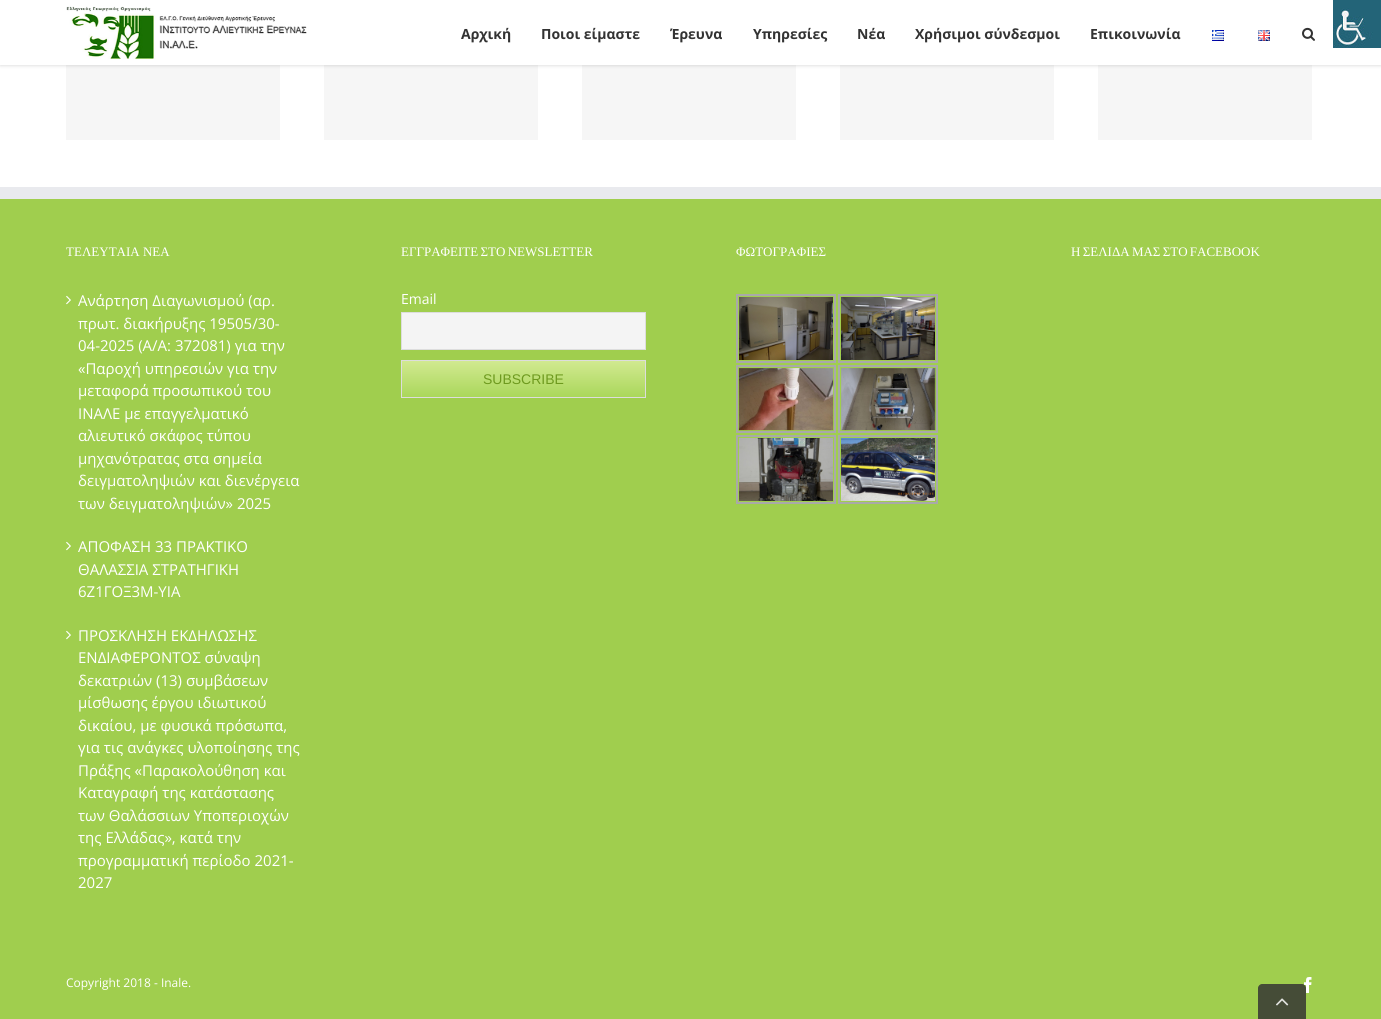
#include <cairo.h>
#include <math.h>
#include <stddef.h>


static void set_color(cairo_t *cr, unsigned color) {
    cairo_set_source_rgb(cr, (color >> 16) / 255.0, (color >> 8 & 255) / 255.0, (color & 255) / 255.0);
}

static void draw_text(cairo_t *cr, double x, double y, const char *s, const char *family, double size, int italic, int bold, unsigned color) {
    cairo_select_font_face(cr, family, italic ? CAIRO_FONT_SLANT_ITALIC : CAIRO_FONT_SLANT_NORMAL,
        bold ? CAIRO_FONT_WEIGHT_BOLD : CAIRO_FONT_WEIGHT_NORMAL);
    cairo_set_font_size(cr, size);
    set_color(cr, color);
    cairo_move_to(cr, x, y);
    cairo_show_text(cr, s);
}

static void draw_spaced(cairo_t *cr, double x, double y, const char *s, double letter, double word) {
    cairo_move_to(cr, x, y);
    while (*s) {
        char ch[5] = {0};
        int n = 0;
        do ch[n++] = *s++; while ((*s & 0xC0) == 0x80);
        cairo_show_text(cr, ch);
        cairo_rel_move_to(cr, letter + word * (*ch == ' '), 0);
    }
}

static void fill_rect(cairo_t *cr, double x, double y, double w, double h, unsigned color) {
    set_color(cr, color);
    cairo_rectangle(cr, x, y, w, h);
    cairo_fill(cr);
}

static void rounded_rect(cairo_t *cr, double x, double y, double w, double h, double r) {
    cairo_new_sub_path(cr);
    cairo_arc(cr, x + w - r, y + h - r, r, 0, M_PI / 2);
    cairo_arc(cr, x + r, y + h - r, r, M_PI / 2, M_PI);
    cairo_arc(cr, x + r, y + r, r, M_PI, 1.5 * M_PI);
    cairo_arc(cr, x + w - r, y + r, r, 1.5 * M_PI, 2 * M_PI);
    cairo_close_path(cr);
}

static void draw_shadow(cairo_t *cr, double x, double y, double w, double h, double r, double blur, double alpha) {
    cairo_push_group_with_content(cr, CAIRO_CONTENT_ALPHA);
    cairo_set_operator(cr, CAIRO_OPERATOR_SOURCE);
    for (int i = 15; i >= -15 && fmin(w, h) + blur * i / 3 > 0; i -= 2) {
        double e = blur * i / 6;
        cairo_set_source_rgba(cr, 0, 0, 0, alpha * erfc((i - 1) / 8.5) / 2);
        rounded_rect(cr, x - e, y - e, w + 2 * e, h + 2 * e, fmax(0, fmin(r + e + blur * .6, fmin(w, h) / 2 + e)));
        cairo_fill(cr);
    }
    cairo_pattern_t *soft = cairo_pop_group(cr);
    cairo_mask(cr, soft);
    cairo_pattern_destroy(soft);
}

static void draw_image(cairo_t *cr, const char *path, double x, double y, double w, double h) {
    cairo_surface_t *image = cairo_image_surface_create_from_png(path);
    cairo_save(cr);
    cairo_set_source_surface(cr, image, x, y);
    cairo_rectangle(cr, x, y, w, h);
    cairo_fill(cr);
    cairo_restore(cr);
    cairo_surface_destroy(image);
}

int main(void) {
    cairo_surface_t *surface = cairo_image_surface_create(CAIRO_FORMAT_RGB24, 1381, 1019);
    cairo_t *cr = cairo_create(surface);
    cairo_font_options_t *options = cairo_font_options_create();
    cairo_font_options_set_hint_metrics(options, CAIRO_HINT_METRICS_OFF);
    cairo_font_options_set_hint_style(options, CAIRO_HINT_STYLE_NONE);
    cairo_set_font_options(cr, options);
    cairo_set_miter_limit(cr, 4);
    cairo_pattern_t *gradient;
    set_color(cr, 0xFFFFFF);
    cairo_paint(cr);
    fill_rect(cr, 66, 65, 214, 75, 0xF6F6F6);
    fill_rect(cr, 324, 65, 214, 75, 0xF6F6F6);
    fill_rect(cr, 582, 65, 214, 75, 0xF6F6F6);
    fill_rect(cr, 840, 65, 214, 75, 0xF6F6F6);
    fill_rect(cr, 1098, 65, 214, 75, 0xF6F6F6);
    set_color(cr, 0x000000);
    draw_shadow(cr, 0, 1, 1381, 65, 0, 1.5, 0.12);
    fill_rect(cr, 0, 0, 1381, 65, 0xFFFFFF);
    draw_image(cr, "assets/img1.png", 66, 6, 241, 53);
    draw_text(cr, 461, 39, "Αρχική", "Open Sans", 14, 0, 1, 0x333333);
    draw_text(cr, 541, 39, "Ποιοι είμαστε", "Open Sans", 14, 0, 1, 0x333333);
    draw_text(cr, 670, 39, "Έρευνα", "Open Sans", 14, 0, 1, 0x333333);
    draw_text(cr, 753, 39, "Υπηρεσίες", "Open Sans", 14, 0, 1, 0x333333);
    draw_text(cr, 857, 39, "Νέα", "Open Sans", 14, 0, 1, 0x333333);
    draw_text(cr, 915, 39, "Χρήσιμοι σύνδεσμοι", "Open Sans", 14, 0, 1, 0x333333);
    draw_text(cr, 1090, 39, "Επικοινωνία", "Open Sans", 14, 0, 1, 0x333333);
    draw_image(cr, "assets/img2.png", 1212, 30, 12, 11);
    draw_image(cr, "assets/img3.png", 1258, 30, 12, 11);
    draw_image(cr, "assets/img4.png", 1302, 27, 13, 14);
    fill_rect(cr, 0, 199, 1381, 820, 0xA0CE4E);
    fill_rect(cr, 0, 187, 1381, 12, 0xE9EAEE);
    draw_text(cr, 66, 256, "ΤΕΛΕΥΤΑΙΑ ΝΕΑ", "Liberation Serif", 13, 0, 0, 0xFFFFFF);
    draw_image(cr, "assets/img5.png", 66, 295, 5, 10);
    draw_text(cr, 78, 306, "Ανάρτηση Διαγωνισμού (αρ.", "Open Sans", 15, 0, 0, 0xFFFFFF);
    draw_text(cr, 78, 329, "πρωτ. διακήρυξης 19505/30-", "Open Sans", 15, 0, 0, 0xFFFFFF);
    draw_text(cr, 78, 351, "04-2025 (Α/Α: 372081) για την", "Open Sans", 15, 0, 0, 0xFFFFFF);
    draw_text(cr, 78, 374, "«Παροχή υπηρεσιών για την", "Open Sans", 15, 0, 0, 0xFFFFFF);
    draw_text(cr, 78, 396, "μεταφορά προσωπικού του", "Open Sans", 15, 0, 0, 0xFFFFFF);
    draw_text(cr, 78, 419, "ΙΝΑΛΕ με επαγγελματικό", "Open Sans", 15, 0, 0, 0xFFFFFF);
    draw_text(cr, 78, 441, "αλιευτικό σκάφος τύπου", "Open Sans", 15, 0, 0, 0xFFFFFF);
    draw_text(cr, 78, 464, "μηχανότρατας στα σημεία", "Open Sans", 15, 0, 0, 0xFFFFFF);
    draw_text(cr, 78, 486, "δειγματοληψιών και διενέργεια", "Open Sans", 15, 0, 0, 0xFFFFFF);
    draw_text(cr, 78, 509, "των δειγματοληψιών» 2025", "Open Sans", 15, 0, 0, 0xFFFFFF);
    draw_image(cr, "assets/img5.png", 66, 541, 5, 10);
    draw_text(cr, 78, 552, "ΑΠΟΦΑΣΗ 33 ΠΡΑΚΤΙΚΟ", "Open Sans", 15, 0, 0, 0xFFFFFF);
    draw_text(cr, 78, 575, "ΘΑΛΑΣΣΙΑ ΣΤΡΑΤΗΓΙΚΗ", "Open Sans", 15, 0, 0, 0xFFFFFF);
    draw_text(cr, 78, 597, "6Ζ1ΓΟΞ3Μ-ΥΙΑ", "Open Sans", 15, 0, 0, 0xFFFFFF);
    draw_image(cr, "assets/img5.png", 66, 630, 5, 10);
    draw_text(cr, 78, 641, "ΠΡΟΣΚΛΗΣΗ ΕΚΔΗΛΩΣΗΣ", "Open Sans", 15, 0, 0, 0xFFFFFF);
    draw_text(cr, 78, 663, "ΕΝΔΙΑΦΕΡΟΝΤΟΣ σύναψη", "Open Sans", 15, 0, 0, 0xFFFFFF);
    draw_text(cr, 78, 686, "δεκατριών (13) συμβάσεων", "Open Sans", 15, 0, 0, 0xFFFFFF);
    draw_text(cr, 78, 708, "μίσθωσης έργου ιδιωτικού", "Open Sans", 15, 0, 0, 0xFFFFFF);
    draw_text(cr, 78, 731, "δικαίου, με φυσικά πρόσωπα,", "Open Sans", 15, 0, 0, 0xFFFFFF);
    draw_text(cr, 78, 753, "για τις ανάγκες υλοποίησης της", "Open Sans", 15, 0, 0, 0xFFFFFF);
    draw_text(cr, 78, 776, "Πράξης «Παρακολούθηση και", "Open Sans", 15, 0, 0, 0xFFFFFF);
    draw_text(cr, 78, 798, "Καταγραφή της κατάστασης", "Open Sans", 15, 0, 0, 0xFFFFFF);
    draw_text(cr, 78, 821, "των Θαλάσσιων Υποπεριοχών", "Open Sans", 15, 0, 0, 0xFFFFFF);
    draw_text(cr, 78, 843, "της Ελλάδας», κατά την", "Open Sans", 15, 0, 0, 0xFFFFFF);
    draw_text(cr, 78, 866, "προγραμματική περίοδο 2021-", "Open Sans", 15, 0, 0, 0xFFFFFF);
    draw_text(cr, 78, 888, "2027", "Open Sans", 15, 0, 0, 0xFFFFFF);
    cairo_select_font_face(cr, "Liberation Serif", CAIRO_FONT_SLANT_NORMAL, CAIRO_FONT_WEIGHT_NORMAL);
    cairo_set_font_size(cr, 13);
    draw_spaced(cr, 401, 256, "ΕΓΓΡΑΦΕΙΤΕ ΣΤΟ NEWSLETTER", 0, -1);
    draw_text(cr, 401, 304, "Email", "Open Sans", 14, 0, 0, 0xFFFFFF);
    set_color(cr, 0xF4F4F4);
    cairo_rectangle(cr, 401.5, 312.5, 244, 37);
    cairo_fill_preserve(cr);
    set_color(cr, 0xDDDDDD);
    cairo_set_line_width(cr, 1);
    cairo_stroke(cr);
    gradient = cairo_pattern_create_linear(402, 397, 402, 361);
    cairo_pattern_add_color_stop_rgba(gradient, 0, 0.667, 0.843, 0.357, 1);
    cairo_pattern_add_color_stop_rgba(gradient, 1, 0.82, 0.914, 0.565, 1);
    cairo_set_source(cr, gradient);
    cairo_pattern_destroy(gradient);
    cairo_rectangle(cr, 402, 361, 243, 36);
    cairo_fill(cr);
    cairo_rectangle(cr, 401.5, 360.5, 244, 37);
    set_color(cr, 0xDDDDDD);
    cairo_stroke(cr);
    draw_text(cr, 483, 384, "SUBSCRIBE", "Liberation Sans", 14, 0, 0, 0x6E9A1F);
    draw_text(cr, 736, 256, "ΦΩΤΟΓΡΑΦΙΕΣ", "Liberation Serif", 13, 0, 0, 0xFFFFFF);
    cairo_rectangle(cr, 737, 295, 98, 67);
    set_color(cr, 0xA9A9A9);
    cairo_set_line_width(cr, 2);
    cairo_stroke(cr);
    draw_image(cr, "assets/img6.png", 739, 297, 94, 63);
    cairo_rectangle(cr, 839, 295, 98, 67);
    cairo_stroke(cr);
    draw_image(cr, "assets/img7.png", 841, 297, 94, 63);
    cairo_rectangle(cr, 737, 366, 98, 66);
    cairo_stroke(cr);
    draw_image(cr, "assets/img8.png", 738, 368, 96, 63);
    cairo_rectangle(cr, 839, 366, 98, 66);
    cairo_stroke(cr);
    draw_image(cr, "assets/img9.png", 841, 368, 95, 63);
    cairo_rectangle(cr, 737, 436, 98, 67);
    cairo_stroke(cr);
    draw_image(cr, "assets/img10.png", 739, 438, 94, 63);
    cairo_rectangle(cr, 839, 436, 98, 67);
    cairo_stroke(cr);
    draw_image(cr, "assets/img11.png", 841, 438, 94, 63);
    set_color(cr, 0xFFFFFF);
    draw_spaced(cr, 1071, 256, "Η ΣΕΛΙΔΑ ΜΑΣ ΣΤΟ FACEBOOK", 0, -1);
    draw_text(cr, 66, 987, "Copyright 2018 - Inale.", "Open Sans", 12, 0, 0, 0xFFFFFF);
    draw_image(cr, "assets/img12.png", 1304, 977, 8, 16);
    draw_image(cr, "assets/img13.png", 1333, 0, 48, 48);
    set_color(cr, 0x454C37);
    cairo_new_path(cr);
    cairo_move_to(cr, 1262, 984);
    cairo_line_to(cr, 1302, 984);
    cairo_curve_to(cr, 1304, 984, 1306, 986, 1306, 988);
    cairo_line_to(cr, 1306, 1019);
    cairo_line_to(cr, 1258, 1019);
    cairo_line_to(cr, 1258, 988);
    cairo_curve_to(cr, 1258, 986, 1260, 984, 1262, 984);
    cairo_close_path(cr);
    cairo_fill(cr);
    draw_image(cr, "assets/img14.png", 1276, 998, 13, 8);
    cairo_surface_write_to_png(surface, "output.png");
    cairo_font_options_destroy(options);
    cairo_destroy(cr);
    cairo_surface_destroy(surface);
    return 0;
}
